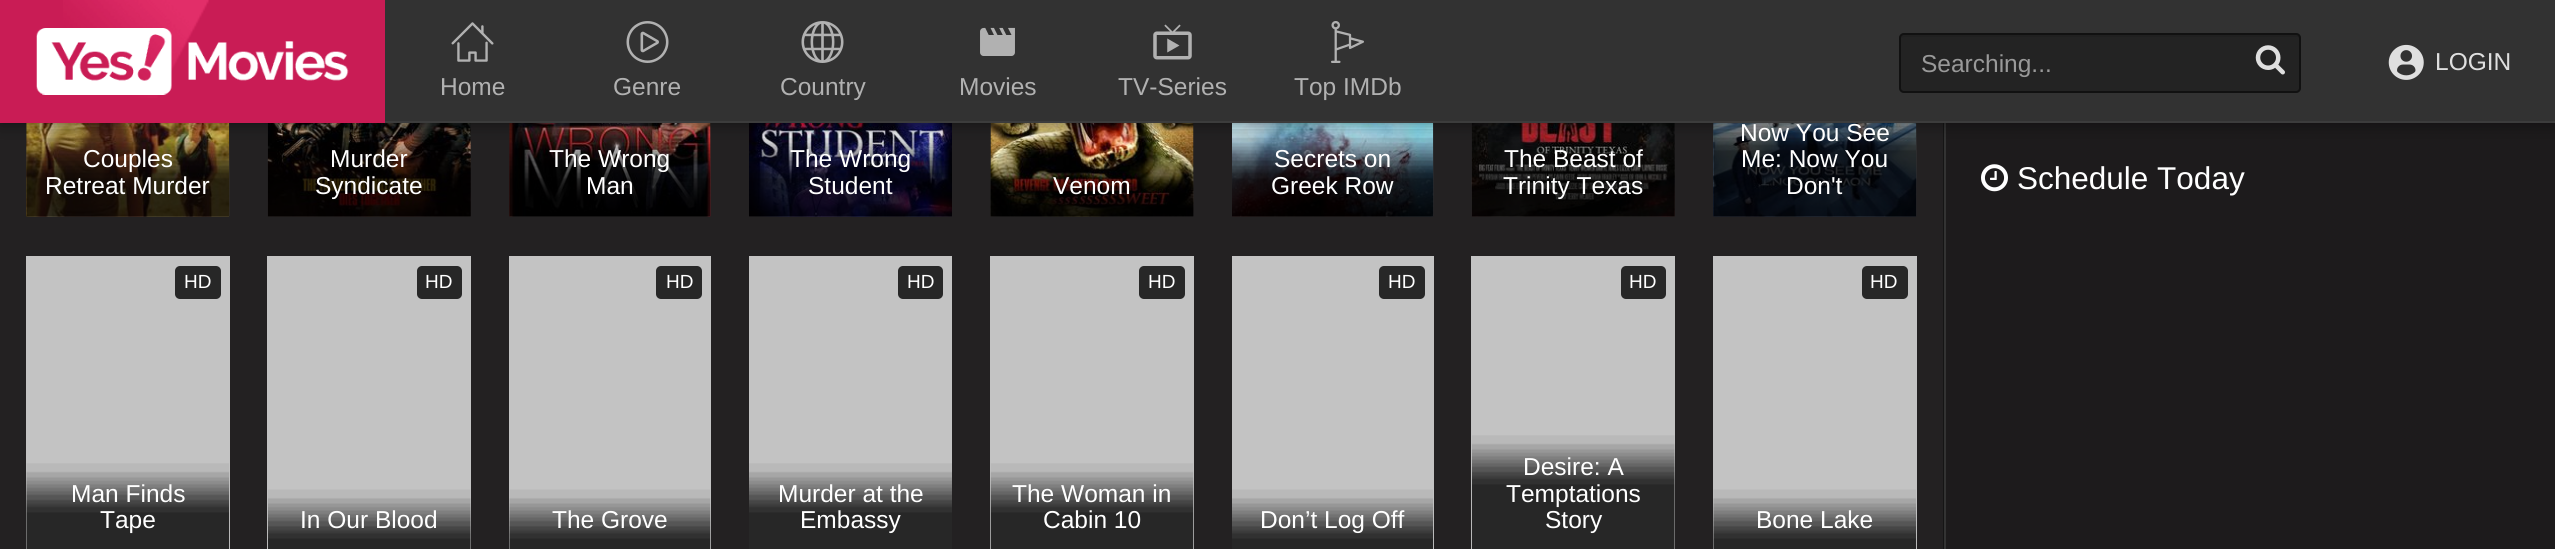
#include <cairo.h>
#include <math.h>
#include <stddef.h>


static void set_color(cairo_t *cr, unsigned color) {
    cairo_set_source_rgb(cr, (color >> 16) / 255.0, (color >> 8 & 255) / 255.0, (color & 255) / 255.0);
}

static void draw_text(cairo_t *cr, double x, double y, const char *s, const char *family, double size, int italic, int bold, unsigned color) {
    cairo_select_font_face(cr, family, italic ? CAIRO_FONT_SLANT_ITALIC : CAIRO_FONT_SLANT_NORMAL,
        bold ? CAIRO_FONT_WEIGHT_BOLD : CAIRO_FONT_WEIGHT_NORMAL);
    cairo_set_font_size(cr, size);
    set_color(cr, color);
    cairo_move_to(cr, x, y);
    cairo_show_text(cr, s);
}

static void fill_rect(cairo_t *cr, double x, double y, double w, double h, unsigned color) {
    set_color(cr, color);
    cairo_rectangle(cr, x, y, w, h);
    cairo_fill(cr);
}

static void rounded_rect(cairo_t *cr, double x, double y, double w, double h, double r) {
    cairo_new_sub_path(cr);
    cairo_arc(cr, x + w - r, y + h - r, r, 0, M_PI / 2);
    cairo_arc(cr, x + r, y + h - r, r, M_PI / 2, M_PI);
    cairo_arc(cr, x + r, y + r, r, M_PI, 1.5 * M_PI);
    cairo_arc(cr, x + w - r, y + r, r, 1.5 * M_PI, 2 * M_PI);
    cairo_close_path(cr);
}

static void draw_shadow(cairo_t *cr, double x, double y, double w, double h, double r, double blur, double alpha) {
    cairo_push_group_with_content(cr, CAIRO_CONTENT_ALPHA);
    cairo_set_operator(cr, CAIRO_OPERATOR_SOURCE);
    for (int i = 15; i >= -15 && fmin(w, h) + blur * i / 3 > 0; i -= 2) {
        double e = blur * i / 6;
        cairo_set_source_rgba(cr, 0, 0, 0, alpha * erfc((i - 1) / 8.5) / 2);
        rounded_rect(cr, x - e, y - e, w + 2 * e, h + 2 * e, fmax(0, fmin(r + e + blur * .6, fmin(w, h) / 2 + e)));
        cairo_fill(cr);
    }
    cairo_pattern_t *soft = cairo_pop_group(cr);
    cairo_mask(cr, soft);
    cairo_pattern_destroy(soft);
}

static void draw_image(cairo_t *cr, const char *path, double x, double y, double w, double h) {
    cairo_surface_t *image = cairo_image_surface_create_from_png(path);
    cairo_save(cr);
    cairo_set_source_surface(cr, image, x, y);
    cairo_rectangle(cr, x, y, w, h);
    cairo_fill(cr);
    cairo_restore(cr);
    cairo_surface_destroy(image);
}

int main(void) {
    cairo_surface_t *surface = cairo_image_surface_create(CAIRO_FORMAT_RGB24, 2555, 549);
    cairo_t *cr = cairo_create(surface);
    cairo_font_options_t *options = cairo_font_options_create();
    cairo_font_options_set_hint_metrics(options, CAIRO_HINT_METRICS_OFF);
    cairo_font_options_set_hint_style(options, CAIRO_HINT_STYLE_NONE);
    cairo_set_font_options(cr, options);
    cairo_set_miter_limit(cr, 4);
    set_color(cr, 0x232122);
    cairo_paint(cr);
    draw_image(cr, "assets/img11.png", 26, 123, 204, 94);
    draw_image(cr, "assets/img12.png", 26, 129, 203, 88);
    draw_image(cr, "assets/img13.png", 267, 123, 204, 94);
    draw_image(cr, "assets/img14.png", 268, 129, 203, 88);
    draw_image(cr, "assets/img15.png", 509, 123, 202, 94);
    draw_image(cr, "assets/img16.png", 509, 129, 202, 88);
    draw_image(cr, "assets/img17.png", 749, 123, 203, 94);
    draw_image(cr, "assets/img18.png", 749, 129, 203, 88);
    draw_image(cr, "assets/img19.png", 990, 123, 204, 94);
    draw_image(cr, "assets/img21.png", 1232, 123, 202, 94);
    draw_image(cr, "assets/img22.png", 1232, 129, 201, 88);
    draw_image(cr, "assets/img23.png", 1471, 123, 204, 94);
    draw_image(cr, "assets/img24.png", 1472, 129, 203, 88);
    draw_image(cr, "assets/img25.png", 1713, 123, 204, 94);
    draw_image(cr, "assets/img26.png", 1713, 123, 203, 94);
    fill_rect(cr, 1946, 123, 609, 426, 0x1D1B1C);
    fill_rect(cr, 1943, 123, 1, 426, 0x151515);
    fill_rect(cr, 1944, 123, 2, 426, 0x333333);
    set_color(cr, 0x000000);
    draw_shadow(cr, 0, 0, 2555, 123, 0, 9, 0.5);
    fill_rect(cr, 385, 0, 2170, 121, 0x323232);
    fill_rect(cr, 0, 0, 385, 123, 0xC91C55);
    draw_image(cr, "assets/img1.png", 63, 0, 146, 98);
    draw_image(cr, "assets/img2.png", 36, 28, 313, 67);
    set_color(cr, 0x232323);
    rounded_rect(cr, 1899, 33, 402, 60, 5);
    cairo_fill(cr);
    set_color(cr, 0x202020);
    cairo_new_path(cr);
    cairo_move_to(cr, 1904, 37);
    cairo_line_to(cr, 2296, 37);
    cairo_curve_to(cr, 2298, 37, 2300, 38, 2300, 40);
    cairo_line_to(cr, 2300, 39);
    cairo_curve_to(cr, 2300, 37, 2298, 35, 2296, 35);
    cairo_line_to(cr, 1905, 35);
    cairo_curve_to(cr, 1903, 35, 1902, 36, 1901, 38);
    cairo_close_path(cr);
    cairo_fill(cr);
    rounded_rect(cr, 1900, 34, 400, 58, 4);
    set_color(cr, 0x111111);
    cairo_stroke(cr);
    draw_text(cr, 1921, 72, "Searching...", "Liberation Sans", 24.5, 0, 0, 0x999999);
    draw_image(cr, "assets/img3.png", 2255, 45, 30, 30);
    draw_image(cr, "assets/img4.png", 2388, 44, 36, 36);
    draw_text(cr, 2435, 70, "LOGIN", "Liberation Sans", 24.5, 0, 0, 0xDFDFDF);
    draw_image(cr, "assets/img5.png", 451, 22, 43, 40);
    draw_text(cr, 440, 95, "Home", "Liberation Sans", 24.5, 0, 0, 0xB1B1B1);
    draw_image(cr, "assets/img6.png", 626, 21, 43, 42);
    draw_text(cr, 613, 95, "Genre", "Liberation Sans", 24.5, 0, 0, 0xB1B1B1);
    draw_image(cr, "assets/img7.png", 801, 21, 43, 42);
    draw_text(cr, 780, 95, "Country", "Liberation Sans", 24.5, 0, 0, 0xB1B1B1);
    draw_image(cr, "assets/img8.png", 980, 27, 35, 29);
    draw_text(cr, 959, 95, "Movies", "Liberation Sans", 24.5, 0, 0, 0xB1B1B1);
    draw_image(cr, "assets/img9.png", 1153, 24, 39, 36);
    draw_text(cr, 1118, 95, "TV-Series", "Liberation Sans", 24.5, 0, 0, 0xB1B1B1);
    draw_image(cr, "assets/img10.png", 1331, 21, 33, 42);
    draw_text(cr, 1294, 95, "Top IMDb", "Liberation Sans", 24.5, 0, 0, 0xB1B1B1);
    fill_rect(cr, 385, 121, 2170, 2, 0x3C3C3C);
    draw_text(cr, 83, 167, "Couples", "Liberation Sans", 24.5, 0, 0, 0xFFFFFF);
    draw_text(cr, 45, 194, "Retreat Murder", "Liberation Sans", 24.5, 0, 0, 0xFFFFFF);
    draw_text(cr, 330, 167, "Murder", "Liberation Sans", 24.5, 0, 0, 0xFFFFFF);
    draw_text(cr, 315, 194, "Syndicate", "Liberation Sans", 24.5, 0, 0, 0xFFFFFF);
    draw_text(cr, 549, 167, "The Wrong", "Liberation Sans", 24.5, 0, 0, 0xFFFFFF);
    draw_text(cr, 586, 194, "Man", "Liberation Sans", 24.5, 0, 0, 0xFFFFFF);
    draw_text(cr, 790, 167, "The Wrong", "Liberation Sans", 24.5, 0, 0, 0xFFFFFF);
    draw_text(cr, 808, 194, "Student", "Liberation Sans", 24.5, 0, 0, 0xFFFFFF);
    draw_image(cr, "assets/img20.png", 990, 155, 204, 62);
    draw_text(cr, 1053, 194, "Venom", "Liberation Sans", 24.5, 0, 0, 0xFFFFFF);
    draw_text(cr, 1274, 167, "Secrets on", "Liberation Sans", 24.5, 0, 0, 0xFFFFFF);
    draw_text(cr, 1271, 194, "Greek Row", "Liberation Sans", 24.5, 0, 0, 0xFFFFFF);
    draw_text(cr, 1504, 167, "The Beast of", "Liberation Sans", 24.5, 0, 0, 0xFFFFFF);
    draw_text(cr, 1503, 194, "Trinity Texas", "Liberation Sans", 24.5, 0, 0, 0xFFFFFF);
    draw_text(cr, 1740, 141, "Now You See", "Liberation Sans", 24.5, 0, 0, 0xFFFFFF);
    draw_text(cr, 1741, 167, "Me: Now You", "Liberation Sans", 24.5, 0, 0, 0xFFFFFF);
    draw_text(cr, 1786, 194, "Don't", "Liberation Sans", 24.5, 0, 0, 0xFFFFFF);
    fill_rect(cr, 26, 256, 204, 293, 0xC3C3C3);
    set_color(cr, 0x272727);
    rounded_rect(cr, 175, 266, 46, 33, 5);
    cairo_fill(cr);
    draw_text(cr, 184, 288, "HD", "Liberation Sans", 19, 0, 0, 0xFFFFFF);
    draw_image(cr, "assets/img27.png", 26, 463, 204, 86);
    draw_text(cr, 71, 502, "Man Finds", "Liberation Sans", 24.5, 0, 0, 0xFFFFFF);
    draw_text(cr, 100, 528, "Tape", "Liberation Sans", 24.5, 0, 0, 0xFFFFFF);
    fill_rect(cr, 267, 256, 204, 293, 0xC3C3C3);
    set_color(cr, 0x272727);
    rounded_rect(cr, 417, 266, 45, 33, 5);
    cairo_fill(cr);
    draw_text(cr, 425, 288, "HD", "Liberation Sans", 19, 0, 0, 0xFFFFFF);
    draw_image(cr, "assets/img28.png", 267, 489, 204, 60);
    draw_text(cr, 300, 528, "In Our Blood", "Liberation Sans", 24.5, 0, 0, 0xFFFFFF);
    fill_rect(cr, 509, 256, 202, 293, 0xC3C3C3);
    set_color(cr, 0x272727);
    rounded_rect(cr, 656, 266, 46, 33, 5);
    cairo_fill(cr);
    draw_text(cr, 666, 288, "HD", "Liberation Sans", 19, 0, 0, 0xFFFFFF);
    draw_image(cr, "assets/img29.png", 509, 489, 202, 60);
    draw_text(cr, 552, 528, "The Grove", "Liberation Sans", 24.5, 0, 0, 0xFFFFFF);
    fill_rect(cr, 749, 256, 203, 293, 0xC3C3C3);
    set_color(cr, 0x272727);
    rounded_rect(cr, 898, 266, 45, 33, 5);
    cairo_fill(cr);
    draw_text(cr, 907, 288, "HD", "Liberation Sans", 19, 0, 0, 0xFFFFFF);
    draw_image(cr, "assets/img30.png", 749, 463, 203, 86);
    draw_text(cr, 778, 502, "Murder at the", "Liberation Sans", 24.5, 0, 0, 0xFFFFFF);
    draw_text(cr, 800, 528, "Embassy", "Liberation Sans", 24.5, 0, 0, 0xFFFFFF);
    fill_rect(cr, 990, 256, 204, 293, 0xC3C3C3);
    set_color(cr, 0x272727);
    rounded_rect(cr, 1139, 266, 46, 33, 5);
    cairo_fill(cr);
    draw_text(cr, 1148, 288, "HD", "Liberation Sans", 19, 0, 0, 0xFFFFFF);
    draw_image(cr, "assets/img31.png", 990, 463, 204, 86);
    draw_text(cr, 1012, 502, "The Woman in", "Liberation Sans", 24.5, 0, 0, 0xFFFFFF);
    draw_text(cr, 1043, 528, "Cabin 10", "Liberation Sans", 24.5, 0, 0, 0xFFFFFF);
    fill_rect(cr, 1232, 256, 202, 293, 0xC3C3C3);
    set_color(cr, 0x272727);
    rounded_rect(cr, 1379, 266, 46, 33, 5);
    cairo_fill(cr);
    draw_text(cr, 1388, 288, "HD", "Liberation Sans", 19, 0, 0, 0xFFFFFF);
    draw_image(cr, "assets/img32.png", 1232, 489, 202, 60);
    draw_text(cr, 1260, 528, "Don’t Log Off", "Liberation Sans", 24.5, 0, 0, 0xFFFFFF);
    fill_rect(cr, 1471, 256, 204, 293, 0xC3C3C3);
    set_color(cr, 0x272727);
    rounded_rect(cr, 1621, 266, 45, 33, 5);
    cairo_fill(cr);
    draw_text(cr, 1629, 288, "HD", "Liberation Sans", 19, 0, 0, 0xFFFFFF);
    draw_image(cr, "assets/img33.png", 1471, 435, 204, 114);
    draw_text(cr, 1523, 475, "Desire: A", "Liberation Sans", 24.5, 0, 0, 0xFFFFFF);
    draw_text(cr, 1506, 502, "Temptations", "Liberation Sans", 24.5, 0, 0, 0xFFFFFF);
    draw_text(cr, 1545, 528, "Story", "Liberation Sans", 24.5, 0, 0, 0xFFFFFF);
    fill_rect(cr, 1713, 256, 204, 293, 0xC3C3C3);
    set_color(cr, 0x272727);
    rounded_rect(cr, 1862, 266, 46, 33, 5);
    cairo_fill(cr);
    draw_text(cr, 1870, 288, "HD", "Liberation Sans", 19, 0, 0, 0xFFFFFF);
    draw_image(cr, "assets/img34.png", 1713, 489, 204, 60);
    draw_text(cr, 1756, 528, "Bone Lake", "Liberation Sans", 24.5, 0, 0, 0xFFFFFF);
    draw_image(cr, "assets/img35.png", 1981, 164, 27, 28);
    draw_text(cr, 2017, 189, "Schedule Today", "Liberation Sans", 31.5, 0, 0, 0xFFFFFF);
    cairo_surface_write_to_png(surface, "output.png");
    cairo_font_options_destroy(options);
    cairo_destroy(cr);
    cairo_surface_destroy(surface);
    return 0;
}
